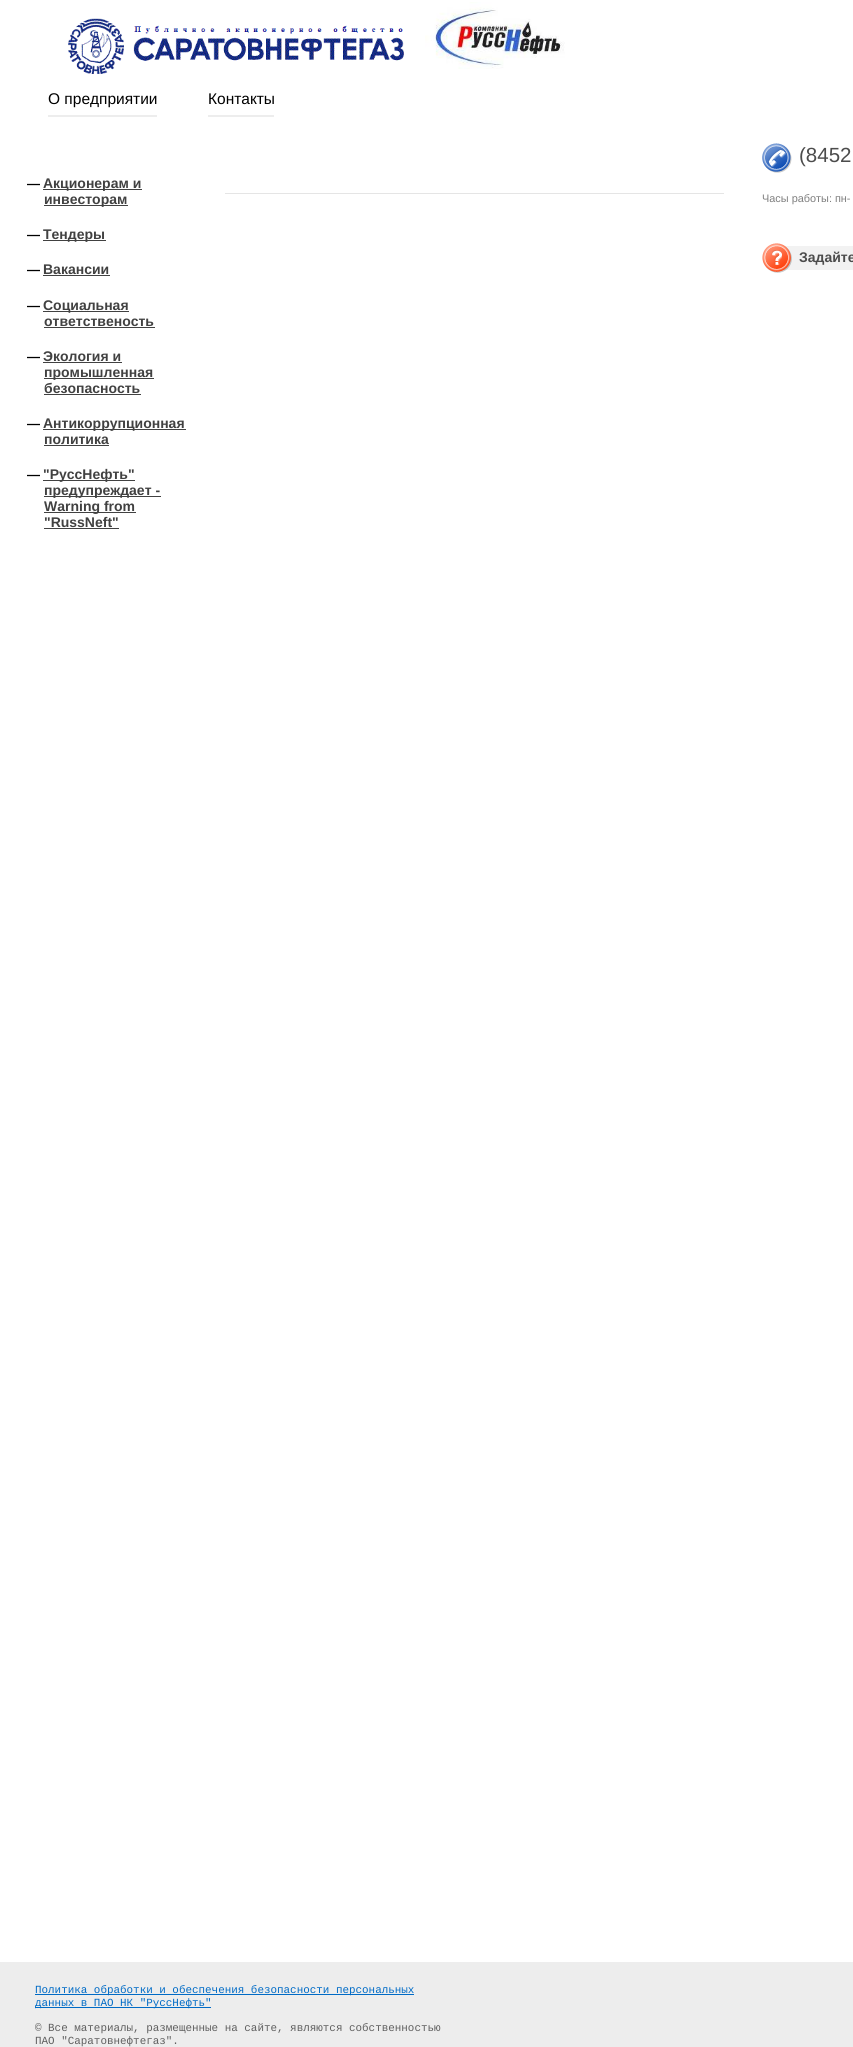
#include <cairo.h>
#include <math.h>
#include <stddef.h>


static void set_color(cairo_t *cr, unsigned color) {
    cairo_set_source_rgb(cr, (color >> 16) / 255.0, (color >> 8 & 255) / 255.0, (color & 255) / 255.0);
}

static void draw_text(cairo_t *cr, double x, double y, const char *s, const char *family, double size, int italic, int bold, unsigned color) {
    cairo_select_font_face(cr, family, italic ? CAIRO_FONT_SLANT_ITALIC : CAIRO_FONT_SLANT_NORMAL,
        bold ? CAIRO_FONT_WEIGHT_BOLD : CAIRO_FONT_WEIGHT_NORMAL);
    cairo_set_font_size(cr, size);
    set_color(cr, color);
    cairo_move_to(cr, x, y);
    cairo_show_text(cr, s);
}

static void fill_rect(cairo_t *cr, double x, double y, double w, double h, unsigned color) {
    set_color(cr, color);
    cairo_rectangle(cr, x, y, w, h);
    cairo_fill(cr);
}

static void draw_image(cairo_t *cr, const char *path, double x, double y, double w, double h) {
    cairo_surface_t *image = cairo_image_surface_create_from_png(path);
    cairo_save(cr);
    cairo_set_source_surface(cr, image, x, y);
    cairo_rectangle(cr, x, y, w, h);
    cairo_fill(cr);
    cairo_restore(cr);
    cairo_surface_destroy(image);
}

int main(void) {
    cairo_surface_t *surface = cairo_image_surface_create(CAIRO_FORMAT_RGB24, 853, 2047);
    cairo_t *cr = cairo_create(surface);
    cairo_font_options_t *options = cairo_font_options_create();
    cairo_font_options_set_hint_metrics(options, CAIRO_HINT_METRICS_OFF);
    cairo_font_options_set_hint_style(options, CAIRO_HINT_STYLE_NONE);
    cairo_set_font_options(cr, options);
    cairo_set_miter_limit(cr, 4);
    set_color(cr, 0xFFFFFF);
    cairo_paint(cr);
    draw_image(cr, "assets/img1.png", 68, 18, 336, 56);
    draw_image(cr, "assets/img2.png", 425, 2, 140, 67);
    fill_rect(cr, 48, 115, 109, 2, 0xEDEDED);
    draw_text(cr, 48, 104, "О предприятии", "Liberation Sans", 15.5, 0, 0, 0x000000);
    fill_rect(cr, 208, 115, 66, 2, 0xEDEDED);
    draw_text(cr, 208, 104, "Контакты", "Liberation Sans", 15.5, 0, 0, 0x000000);
    draw_text(cr, 27, 188, "—", "Liberation Sans", 13, 0, 1, 0x000000);
    fill_rect(cr, 43, 189, 99, 1, 0x414141);
    draw_text(cr, 43, 188, "Акционерам и", "Liberation Sans", 14, 0, 1, 0x414141);
    fill_rect(cr, 44, 205, 84, 1, 0x414141);
    draw_text(cr, 44, 204, "инвесторам", "Liberation Sans", 14, 0, 1, 0x414141);
    draw_text(cr, 27, 239, "—", "Liberation Sans", 13, 0, 1, 0x000000);
    fill_rect(cr, 43, 240, 63, 1, 0x414141);
    draw_text(cr, 43, 239, "Тендеры", "Liberation Sans", 14, 0, 1, 0x414141);
    draw_text(cr, 27, 274, "—", "Liberation Sans", 13, 0, 1, 0x000000);
    draw_text(cr, 43, 274, "Вакансии", "Liberation Sans", 14, 0, 1, 0x414141);
    fill_rect(cr, 43, 275, 67, 1, 0x414141);
    draw_text(cr, 27, 310, "—", "Liberation Sans", 13, 0, 1, 0x000000);
    fill_rect(cr, 43, 311, 86, 1, 0x414141);
    draw_text(cr, 43, 310, "Социальная", "Liberation Sans", 14, 0, 1, 0x414141);
    draw_text(cr, 44, 326, "ответственость", "Liberation Sans", 14, 0, 1, 0x414141);
    fill_rect(cr, 44, 327, 111, 1, 0x414141);
    draw_text(cr, 27, 361, "—", "Liberation Sans", 13, 0, 1, 0x000000);
    draw_text(cr, 43, 361, "Экология и", "Liberation Sans", 14, 0, 1, 0x414141);
    fill_rect(cr, 43, 362, 79, 1, 0x414141);
    fill_rect(cr, 44, 378, 110, 1, 0x414141);
    draw_text(cr, 44, 377, "промышленная", "Liberation Sans", 14, 0, 1, 0x414141);
    draw_text(cr, 44, 393, "безопасность", "Liberation Sans", 14, 0, 1, 0x414141);
    fill_rect(cr, 44, 394, 97, 1, 0x414141);
    draw_text(cr, 27, 428, "—", "Liberation Sans", 13, 0, 1, 0x000000);
    fill_rect(cr, 43, 429, 143, 1, 0x414141);
    draw_text(cr, 43, 428, "Антикоррупционная", "Liberation Sans", 14, 0, 1, 0x414141);
    draw_text(cr, 44, 444, "политика", "Liberation Sans", 14, 0, 1, 0x414141);
    fill_rect(cr, 44, 445, 65, 1, 0x414141);
    draw_text(cr, 27, 479, "—", "Liberation Sans", 13, 0, 1, 0x000000);
    fill_rect(cr, 43, 480, 92, 1, 0x414141);
    draw_text(cr, 43, 479, "\"РуссНефть\"", "Liberation Sans", 14, 0, 1, 0x414141);
    fill_rect(cr, 44, 496, 117, 1, 0x414141);
    draw_text(cr, 44, 495, "предупреждает -", "Liberation Sans", 14, 0, 1, 0x414141);
    fill_rect(cr, 44, 512, 92, 1, 0x414141);
    draw_text(cr, 44, 511, "Warning from", "Liberation Sans", 14, 0, 1, 0x414141);
    draw_text(cr, 44, 527, "\"RussNeft\"", "Liberation Sans", 14, 0, 1, 0x414141);
    fill_rect(cr, 44, 528, 75, 1, 0x414141);
    fill_rect(cr, 225, 193, 499, 1, 0xE5E5E5);
    draw_image(cr, "assets/img3.png", 762, 143, 30, 30);
    draw_text(cr, 799, 162, "(8452", "Liberation Sans", 20.5, 0, 0, 0x4C4C4C);
    draw_text(cr, 762, 202, "Часы работы: пн-", "Liberation Sans", 10.9, 0, 0, 0x7F7F7F);
    fill_rect(cr, 777, 246, 76, 1, 0xF2F2F2);
    fill_rect(cr, 785, 247, 68, 22, 0xF2F2F2);
    fill_rect(cr, 777, 269, 76, 1, 0xF2F2F2);
    draw_image(cr, "assets/img4.png", 762, 243, 30, 30);
    draw_text(cr, 799, 262, "Задайте", "Liberation Sans", 14, 0, 1, 0x4C4C4C);
    fill_rect(cr, 0, 1962, 853, 85, 0xEDEDED);
    fill_rect(cr, 35, 1994, 379, 1, 0x006BC6);
    draw_text(cr, 35, 1993, "Политика обработки и обеспечения безопасности персональных", "Liberation Mono", 10.9, 0, 0, 0x006BC6);
    fill_rect(cr, 35, 2007, 176, 1, 0x006BC6);
    draw_text(cr, 35, 2006, "данных в ПАО НК \"РуссНефть\"", "Liberation Mono", 10.9, 0, 0, 0x006BC6);
    draw_text(cr, 35, 2031, "© Все материалы, размещенные на сайте, являются собственностью", "Liberation Mono", 10.9, 0, 0, 0x5F5F5F);
    draw_text(cr, 35, 2044, "ПАО \"Саратовнефтегаз\".", "Liberation Mono", 10.9, 0, 0, 0x5F5F5F);
    cairo_surface_write_to_png(surface, "output.png");
    cairo_font_options_destroy(options);
    cairo_destroy(cr);
    cairo_surface_destroy(surface);
    return 0;
}
